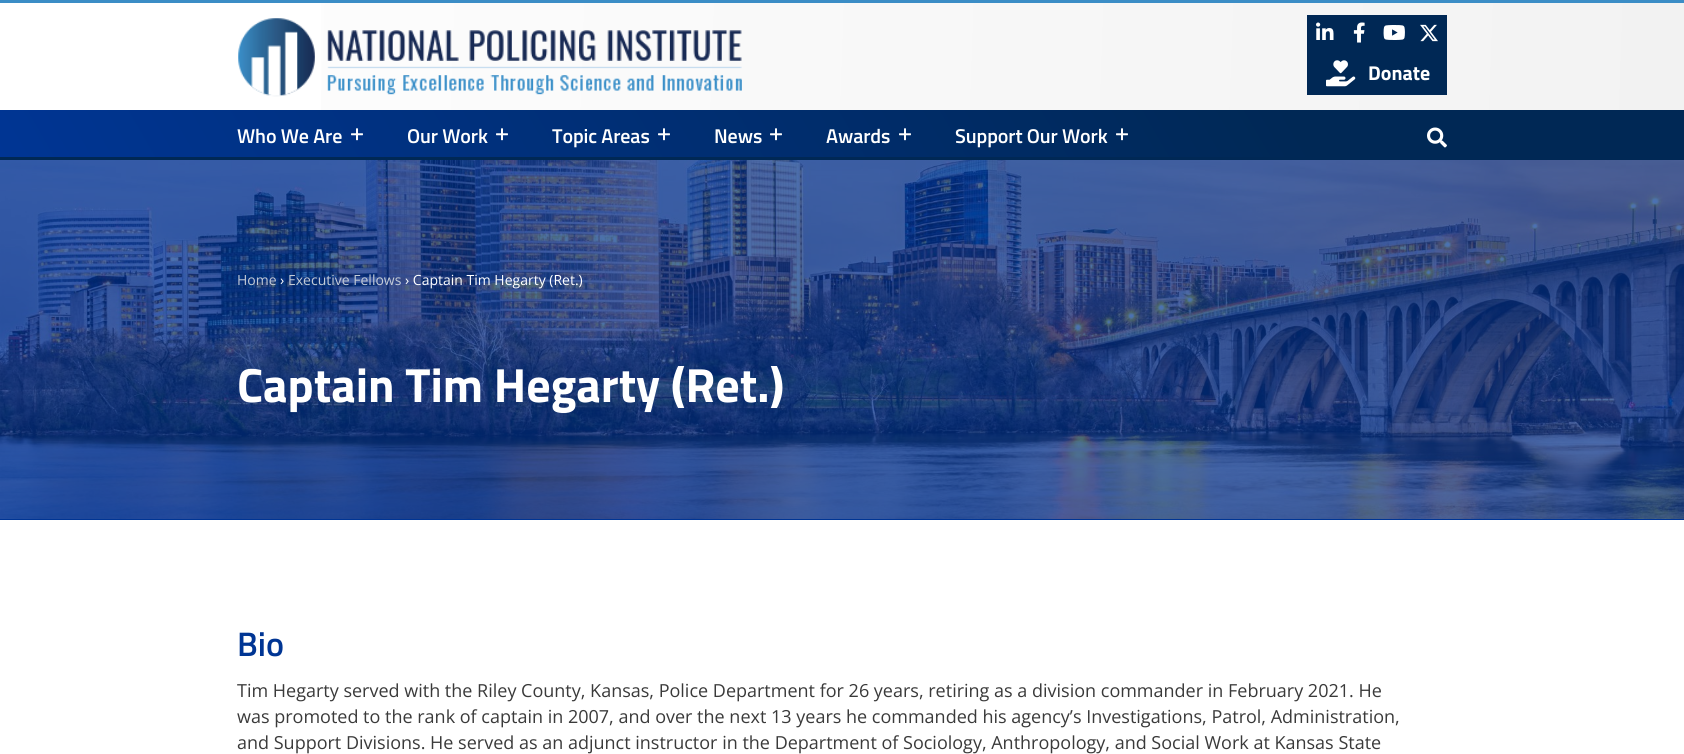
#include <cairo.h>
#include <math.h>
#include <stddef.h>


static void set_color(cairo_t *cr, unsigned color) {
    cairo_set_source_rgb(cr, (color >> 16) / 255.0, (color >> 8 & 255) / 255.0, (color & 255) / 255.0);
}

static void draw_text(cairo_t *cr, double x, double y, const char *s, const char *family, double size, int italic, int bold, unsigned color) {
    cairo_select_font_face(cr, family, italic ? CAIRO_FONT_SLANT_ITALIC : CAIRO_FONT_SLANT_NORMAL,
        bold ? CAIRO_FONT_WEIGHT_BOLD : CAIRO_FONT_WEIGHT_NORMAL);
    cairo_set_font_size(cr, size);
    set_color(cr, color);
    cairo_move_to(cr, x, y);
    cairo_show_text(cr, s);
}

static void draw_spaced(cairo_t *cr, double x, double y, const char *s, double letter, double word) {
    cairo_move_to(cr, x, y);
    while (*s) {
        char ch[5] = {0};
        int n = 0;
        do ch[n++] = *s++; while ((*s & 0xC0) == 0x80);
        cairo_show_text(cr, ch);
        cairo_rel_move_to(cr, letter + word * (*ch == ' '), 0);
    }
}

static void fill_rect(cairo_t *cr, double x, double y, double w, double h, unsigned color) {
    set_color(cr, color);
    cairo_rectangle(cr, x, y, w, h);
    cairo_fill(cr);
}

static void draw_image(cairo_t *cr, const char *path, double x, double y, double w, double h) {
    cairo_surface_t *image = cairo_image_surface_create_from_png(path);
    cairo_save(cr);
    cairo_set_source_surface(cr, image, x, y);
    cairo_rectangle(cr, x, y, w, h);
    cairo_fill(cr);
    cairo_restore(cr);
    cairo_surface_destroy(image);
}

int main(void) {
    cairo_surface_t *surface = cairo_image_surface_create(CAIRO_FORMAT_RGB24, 1684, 754);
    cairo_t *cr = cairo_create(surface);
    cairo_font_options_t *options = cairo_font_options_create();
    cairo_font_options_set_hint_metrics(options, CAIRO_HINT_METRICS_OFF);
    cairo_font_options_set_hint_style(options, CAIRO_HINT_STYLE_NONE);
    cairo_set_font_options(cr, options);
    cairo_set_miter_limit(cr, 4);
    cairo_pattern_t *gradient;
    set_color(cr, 0xFFFFFF);
    cairo_paint(cr);
    gradient = cairo_pattern_create_linear(-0.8, 27, 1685, 86);
    cairo_pattern_add_color_stop_rgba(gradient, 0, 1, 1, 1, 1);
    cairo_pattern_add_color_stop_rgba(gradient, 1, 0.949, 0.949, 0.949, 1);
    cairo_set_source(cr, gradient);
    cairo_pattern_destroy(gradient);
    cairo_rectangle(cr, 321, 3, 1363, 107);
    cairo_fill(cr);
    fill_rect(cr, 0, 0, 1684, 3, 0x3B8DC6);
    draw_image(cr, "assets/img1.png", 238, 18, 504, 79);
    fill_rect(cr, 1307, 15, 140, 80, 0x002855);
    draw_image(cr, "assets/img2.png", 1316, 22, 18, 18);
    draw_image(cr, "assets/img3.png", 1353, 22, 12, 21);
    draw_image(cr, "assets/img4.png", 1383, 25, 22, 15);
    draw_image(cr, "assets/img5.png", 1420, 24, 18, 18);
    draw_image(cr, "assets/img6.png", 1326, 60, 30, 27);
    draw_text(cr, 1368, 80, "Donate", "Titillium Web", 20, 0, 1, 0xFFFFFF);
    gradient = cairo_pattern_create_linear(1484, -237, 200, 504);
    cairo_pattern_add_color_stop_rgba(gradient, 0.23, 0, 0.157, 0.333, 1);
    cairo_pattern_add_color_stop_rgba(gradient, 1, 0, 0.208, 0.58, 1);
    cairo_set_source(cr, gradient);
    cairo_pattern_destroy(gradient);
    cairo_rectangle(cr, 0, 110, 1684, 47);
    cairo_fill(cr);
    fill_rect(cr, 0, 157, 1684, 3, 0x002855);
    cairo_select_font_face(cr, "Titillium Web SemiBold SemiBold", CAIRO_FONT_SLANT_NORMAL, CAIRO_FONT_WEIGHT_NORMAL);
    set_color(cr, 0xFFFFFF);
    draw_spaced(cr, 237, 143, "Who We Are", -0.1, 0);
    draw_image(cr, "assets/img7.png", 351, 128, 12, 13);
    draw_spaced(cr, 407, 143, "Our Work", -0.1, 0);
    draw_image(cr, "assets/img8.png", 496, 128, 12, 13);
    draw_spaced(cr, 552, 143, "Topic Areas", -0.1, 0);
    draw_image(cr, "assets/img9.png", 658, 128, 12, 13);
    draw_spaced(cr, 714, 143, "News", -0.1, 0);
    draw_image(cr, "assets/img10.png", 770, 128, 12, 13);
    draw_spaced(cr, 826, 143, "Awards", -0.1, 0);
    draw_image(cr, "assets/img11.png", 899, 128, 12, 13);
    draw_spaced(cr, 955, 143, "Support Our Work", -0.1, 0);
    draw_image(cr, "assets/img12.png", 1116, 128, 12, 13);
    draw_image(cr, "assets/img13.png", 1427, 127, 20, 21);
    draw_image(cr, "assets/img14.png", 0, 160, 1684, 359);
    fill_rect(cr, 0, 519, 1684, 1, 0x003594);
    draw_text(cr, 237, 285, "Home", "Open Sans", 14, 0, 0, 0xC3CBD7);
    draw_text(cr, 280, 285, "›", "Open Sans", 14, 0, 0, 0xFFFFFF);
    draw_text(cr, 288, 285, "Executive Fellows", "Open Sans", 14, 0, 0, 0xC3CBD7);
    draw_text(cr, 405, 285, "› Captain Tim Hegarty (Ret.)", "Open Sans", 14, 0, 0, 0xFFFFFF);
    draw_text(cr, 237, 402, "Captain Tim Hegarty (Ret.)", "Titillium Web", 48, 0, 1, 0xFFFFFF);
    draw_text(cr, 237, 656, "Bio", "Titillium Web SemiBold SemiBold", 34, 0, 0, 0x003594);
    draw_text(cr, 237, 697, "Tim Hegarty served with the Riley County, Kansas, Police Department for 26 years, retiring as a division commander in February 2021. He", "Open Sans", 18, 0, 0, 0x3A3A3A);
    draw_text(cr, 237, 723, "was promoted to the rank of captain in 2007, and over the next 13 years he commanded his agency’s Investigations, Patrol, Administration,", "Open Sans", 18, 0, 0, 0x3A3A3A);
    draw_text(cr, 237, 749, "and Support Divisions. He served as an adjunct instructor in the Department of Sociology, Anthropology, and Social Work at Kansas State", "Open Sans", 18, 0, 0, 0x3A3A3A);
    cairo_surface_write_to_png(surface, "output.png");
    cairo_font_options_destroy(options);
    cairo_destroy(cr);
    cairo_surface_destroy(surface);
    return 0;
}
